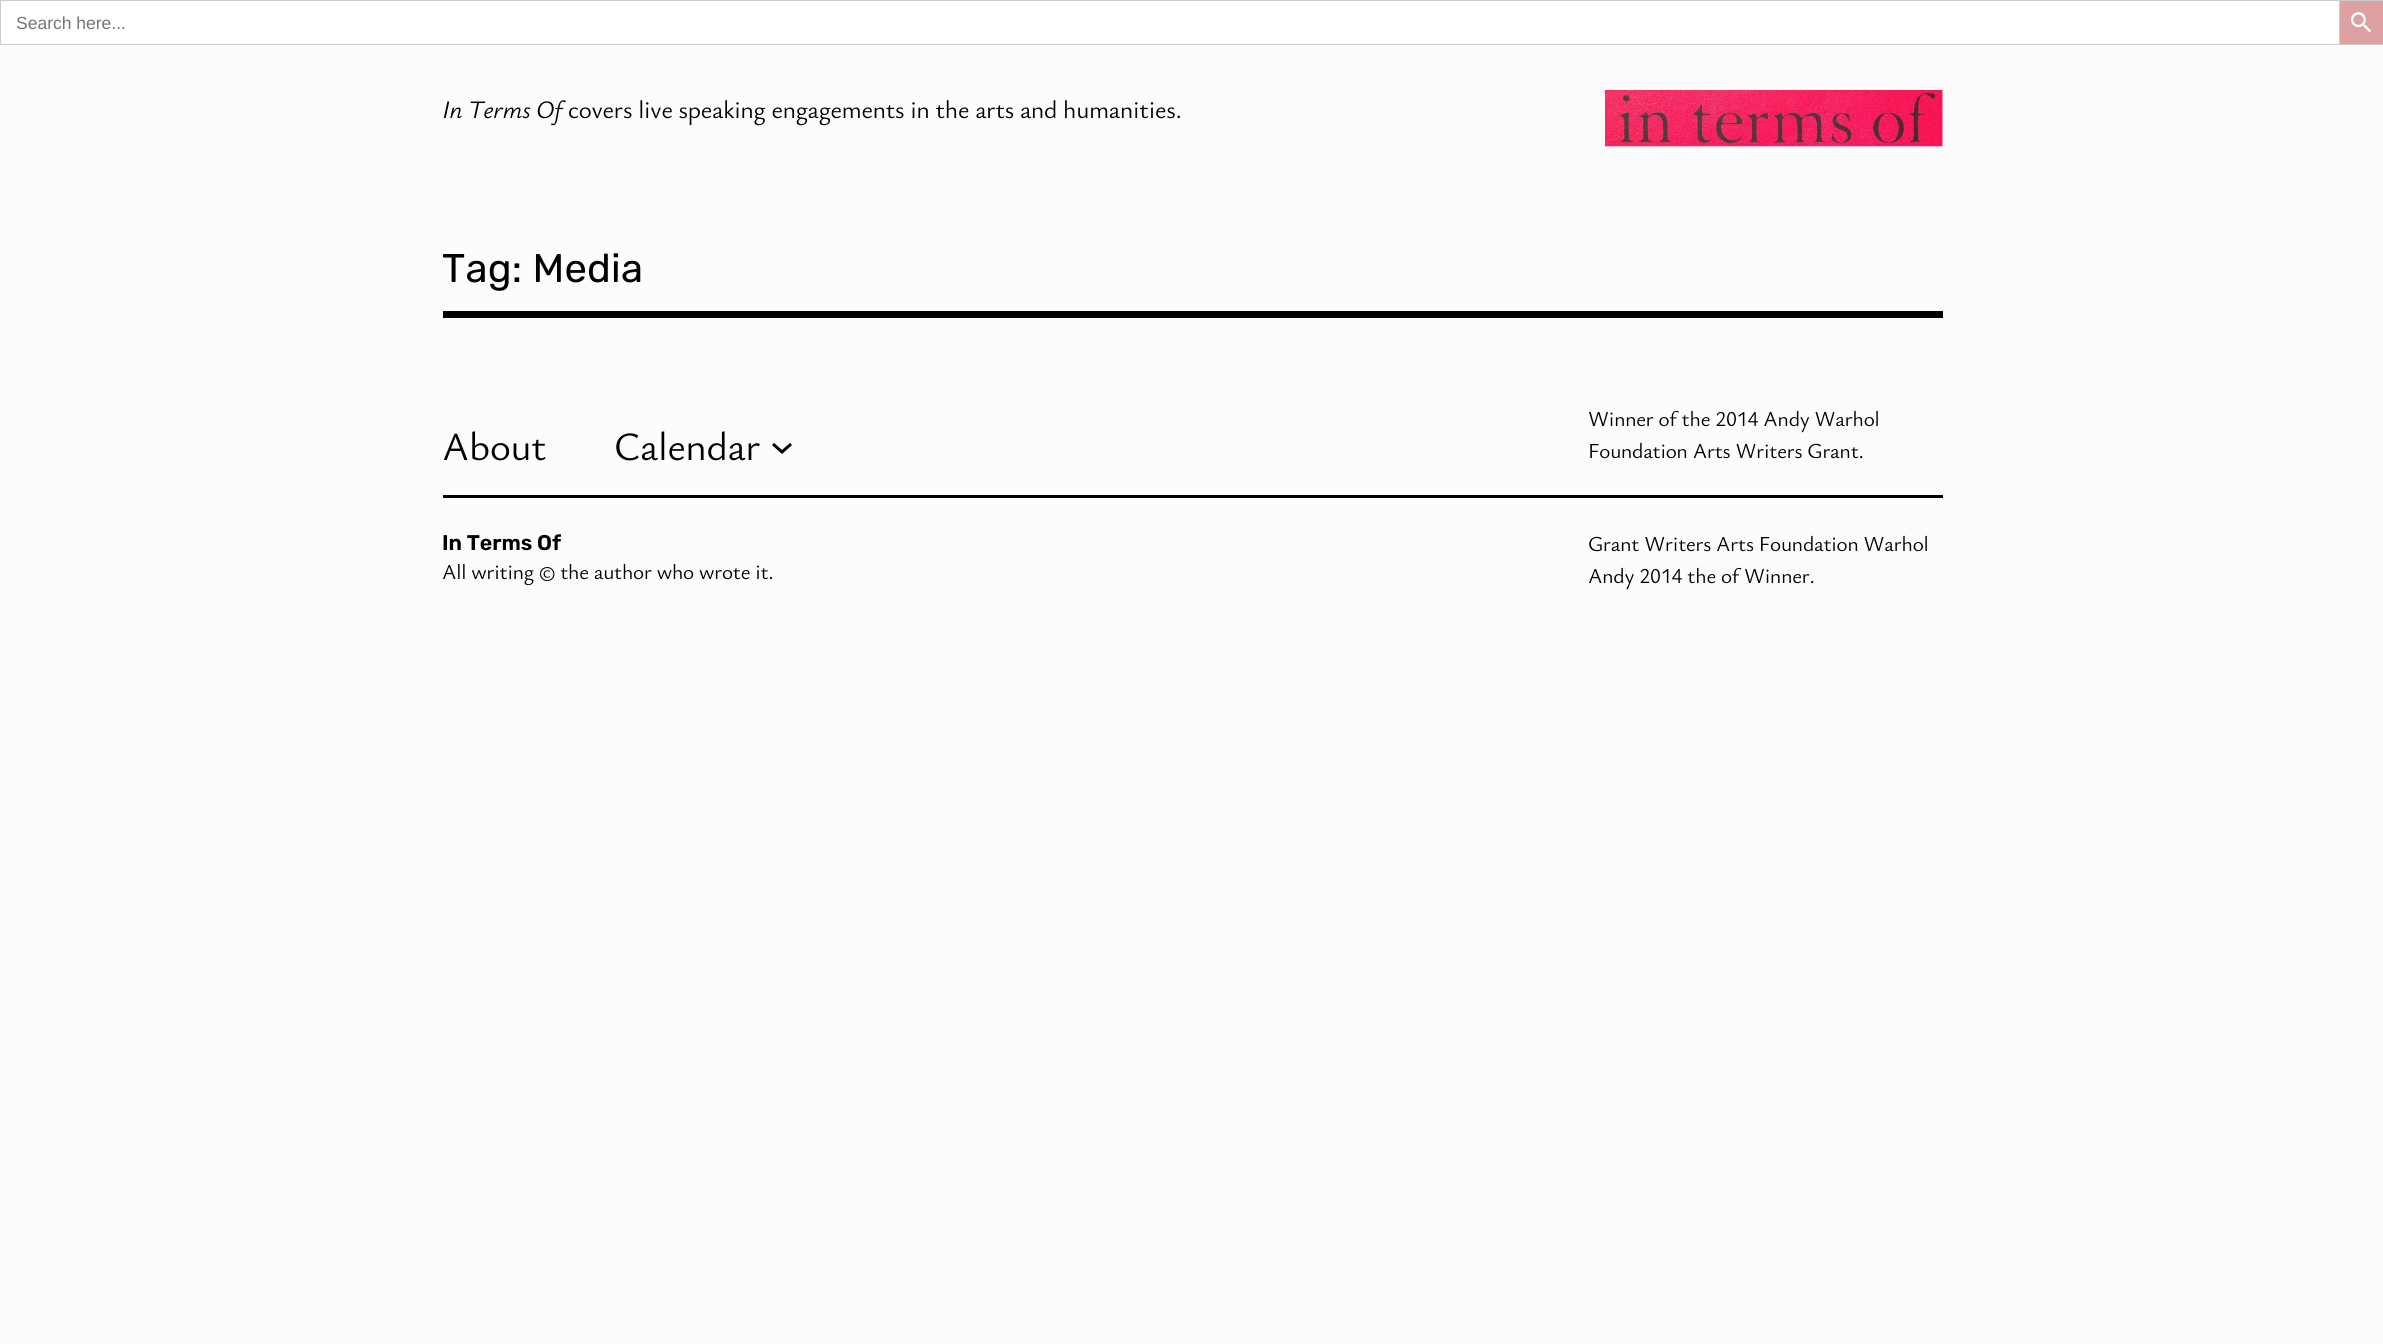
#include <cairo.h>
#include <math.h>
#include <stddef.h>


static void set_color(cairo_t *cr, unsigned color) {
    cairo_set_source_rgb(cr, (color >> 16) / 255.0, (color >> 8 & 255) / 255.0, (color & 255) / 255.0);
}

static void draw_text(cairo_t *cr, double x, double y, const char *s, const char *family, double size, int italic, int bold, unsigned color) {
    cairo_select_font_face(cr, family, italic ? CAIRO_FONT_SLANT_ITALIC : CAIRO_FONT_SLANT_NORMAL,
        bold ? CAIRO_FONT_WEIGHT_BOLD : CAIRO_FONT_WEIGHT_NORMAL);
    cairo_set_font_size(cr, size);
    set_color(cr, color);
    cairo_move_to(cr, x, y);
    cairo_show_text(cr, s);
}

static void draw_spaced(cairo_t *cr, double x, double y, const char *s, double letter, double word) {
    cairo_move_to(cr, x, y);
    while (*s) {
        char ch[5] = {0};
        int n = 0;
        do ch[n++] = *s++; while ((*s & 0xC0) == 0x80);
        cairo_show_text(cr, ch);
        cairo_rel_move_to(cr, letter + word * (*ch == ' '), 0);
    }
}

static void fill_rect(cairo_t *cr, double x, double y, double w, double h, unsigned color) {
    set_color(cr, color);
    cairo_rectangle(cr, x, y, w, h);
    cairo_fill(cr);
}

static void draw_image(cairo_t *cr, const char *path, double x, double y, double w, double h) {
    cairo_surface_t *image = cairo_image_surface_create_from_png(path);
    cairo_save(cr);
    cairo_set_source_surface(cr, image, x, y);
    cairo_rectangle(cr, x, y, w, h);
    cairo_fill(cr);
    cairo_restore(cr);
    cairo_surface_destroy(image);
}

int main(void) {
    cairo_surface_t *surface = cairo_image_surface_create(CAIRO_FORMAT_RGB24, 2383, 1344);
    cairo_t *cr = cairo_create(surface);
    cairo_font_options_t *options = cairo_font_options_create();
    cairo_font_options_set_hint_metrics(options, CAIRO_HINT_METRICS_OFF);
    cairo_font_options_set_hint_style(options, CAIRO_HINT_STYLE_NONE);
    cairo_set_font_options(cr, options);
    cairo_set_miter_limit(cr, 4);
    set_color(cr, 0xFCFCFC);
    cairo_paint(cr);
    fill_rect(cr, 1, 1, 2338, 43, 0xFFFFFF);
    fill_rect(cr, 0, 0, 2339, 1, 0xCCCCCC);
    fill_rect(cr, 0, 44, 2339, 1, 0xCCCCCC);
    fill_rect(cr, 0, 0, 1, 45, 0xCCCCCC);
    draw_text(cr, 16, 29, "Search here...", "Liberation Sans", 17.5, 0, 0, 0x757575);
    set_color(cr, 0xDDA1A1);
    cairo_rectangle(cr, 2339.5, 0.5, 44, 44);
    cairo_fill_preserve(cr);
    set_color(cr, 0xCCCCCC);
    cairo_set_line_width(cr, 1);
    cairo_stroke(cr);
    draw_image(cr, "assets/img1.png", 2351, 12, 20, 21);
    cairo_select_font_face(cr, "Ysabeau Office", CAIRO_FONT_SLANT_ITALIC, CAIRO_FONT_WEIGHT_NORMAL);
    cairo_set_font_size(cr, 25);
    set_color(cr, 0x000000);
    draw_spaced(cr, 442, 118, "In Terms Of", -0.2, 0);
    cairo_select_font_face(cr, "Ysabeau Office", CAIRO_FONT_SLANT_NORMAL, CAIRO_FONT_WEIGHT_NORMAL);
    draw_spaced(cr, 568, 118, "covers live speaking engagements in the arts and humanities.", -0.2, 0);
    draw_image(cr, "assets/img2.png", 1605, 90, 338, 57);
    cairo_select_font_face(cr, "Rubik", CAIRO_FONT_SLANT_NORMAL, CAIRO_FONT_WEIGHT_NORMAL);
    cairo_set_font_size(cr, 40);
    draw_spaced(cr, 442, 282, "Tag: Media", 0.25, 0);
    fill_rect(cr, 443, 311, 1500, 7, 0x000000);
    cairo_select_font_face(cr, "Ysabeau Office", CAIRO_FONT_SLANT_NORMAL, CAIRO_FONT_WEIGHT_NORMAL);
    draw_spaced(cr, 442, 460, "About", -0.2, 0);
    draw_spaced(cr, 614, 460, "Calendar", -0.2, 0);
    cairo_new_path(cr);
    cairo_move_to(cr, 773, 444);
    cairo_line_to(cr, 782, 452);
    cairo_line_to(cr, 791, 444);
    cairo_set_line_width(cr, 3);
    cairo_stroke(cr);
    cairo_set_font_size(cr, 21.25);
    draw_spaced(cr, 1588, 426, "Winner of the 2014 Andy Warhol", -0.2, 0);
    draw_spaced(cr, 1588, 458, "Foundation Arts Writers Grant.", -0.2, 0);
    fill_rect(cr, 443, 495, 1500, 3, 0x000000);
    draw_text(cr, 442, 550, "In Terms Of", "Rubik SemiBold", 21.25, 0, 0, 0x000000);
    cairo_select_font_face(cr, "Ysabeau Office", CAIRO_FONT_SLANT_NORMAL, CAIRO_FONT_WEIGHT_NORMAL);
    draw_spaced(cr, 442, 579, "All writing © the author who wrote it.", -0.2, 0);
    draw_spaced(cr, 1588, 551, "Grant Writers Arts Foundation Warhol", -0.2, 0);
    draw_spaced(cr, 1588, 583, "Andy 2014 the of Winner.", -0.2, 0);
    cairo_surface_write_to_png(surface, "output.png");
    cairo_font_options_destroy(options);
    cairo_destroy(cr);
    cairo_surface_destroy(surface);
    return 0;
}
